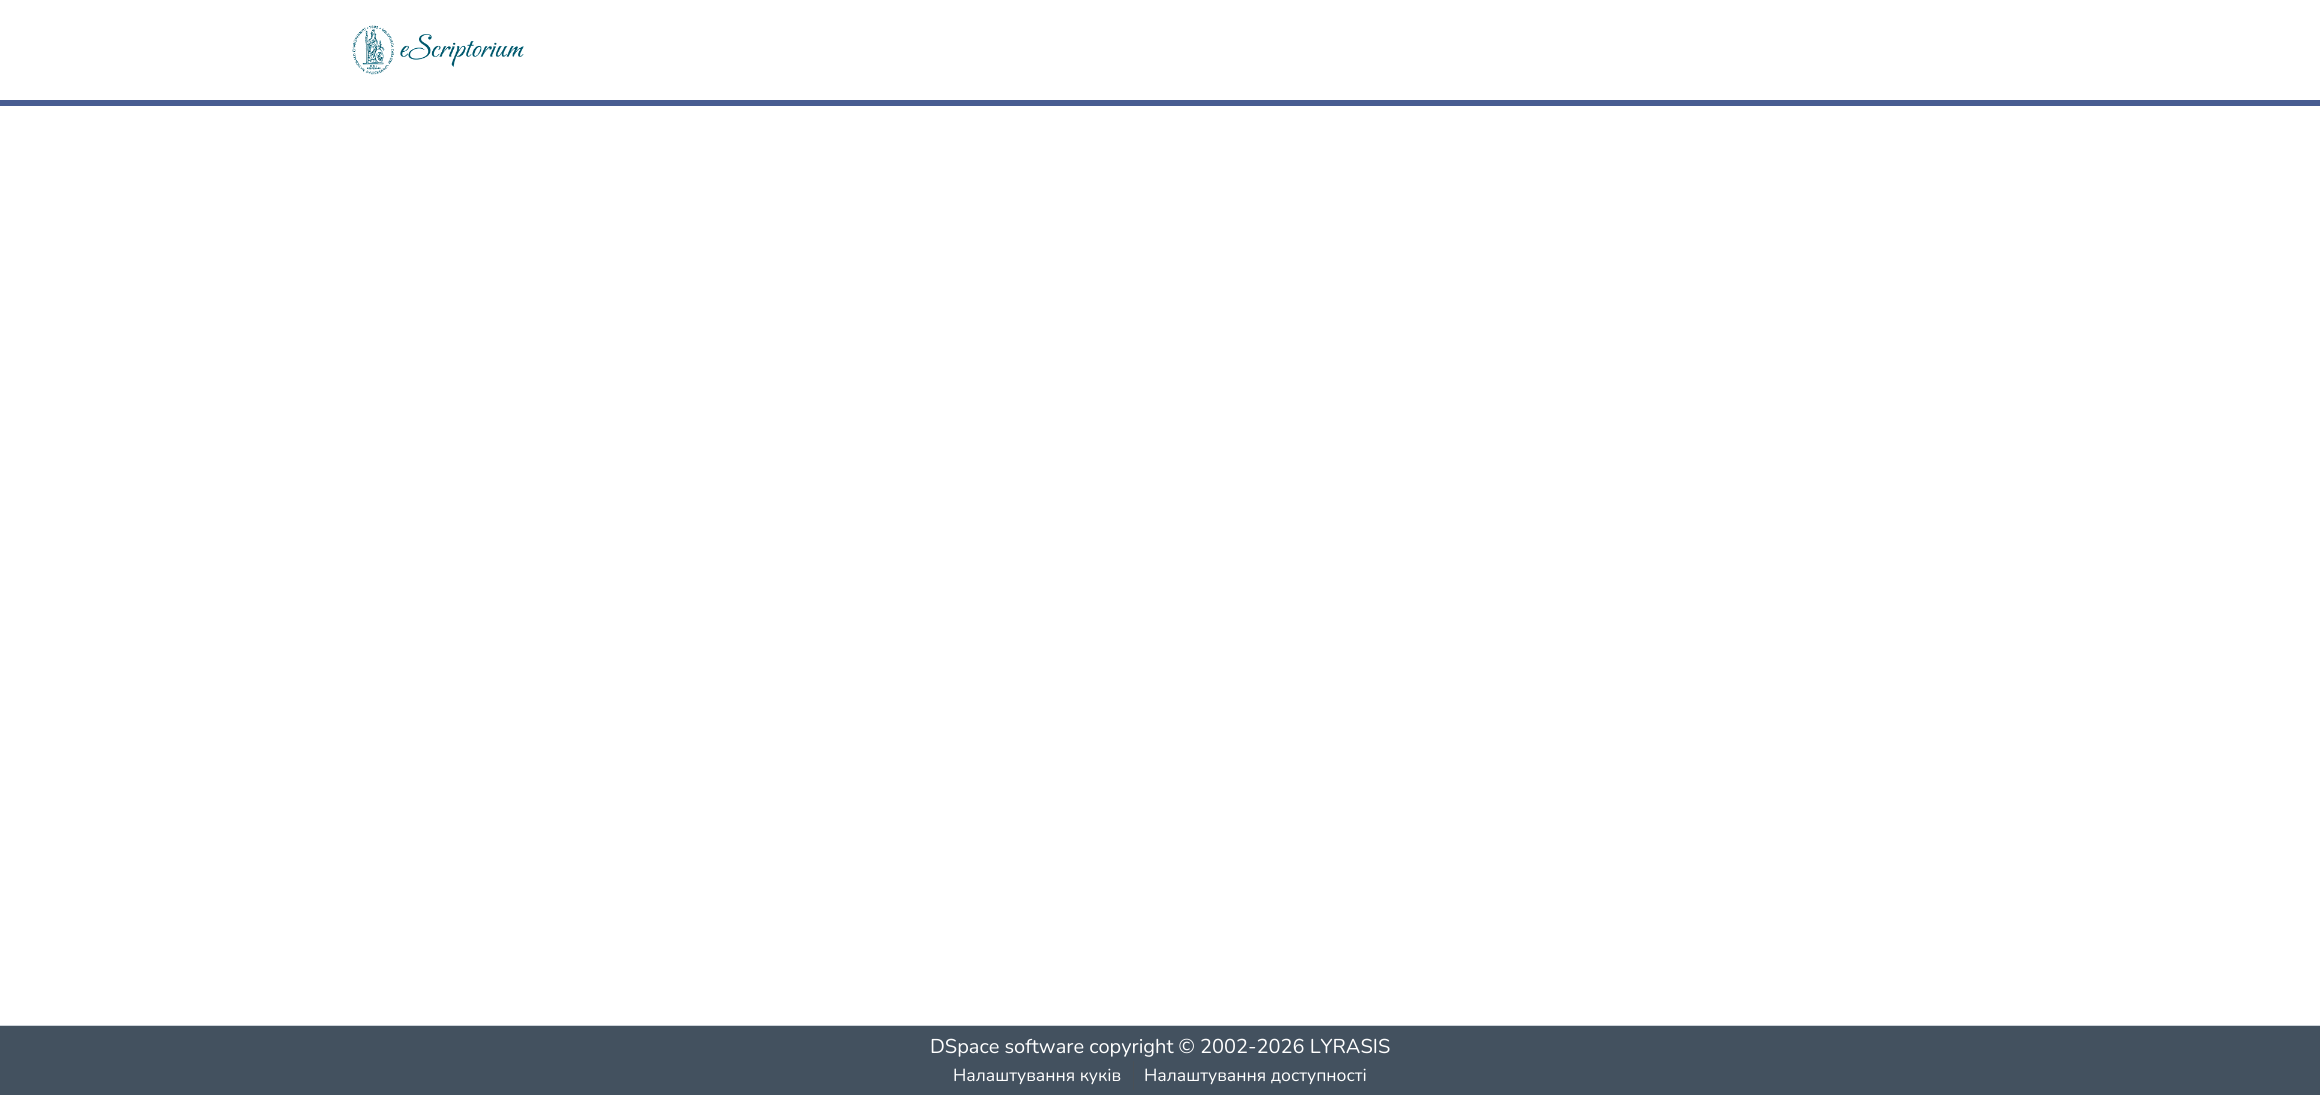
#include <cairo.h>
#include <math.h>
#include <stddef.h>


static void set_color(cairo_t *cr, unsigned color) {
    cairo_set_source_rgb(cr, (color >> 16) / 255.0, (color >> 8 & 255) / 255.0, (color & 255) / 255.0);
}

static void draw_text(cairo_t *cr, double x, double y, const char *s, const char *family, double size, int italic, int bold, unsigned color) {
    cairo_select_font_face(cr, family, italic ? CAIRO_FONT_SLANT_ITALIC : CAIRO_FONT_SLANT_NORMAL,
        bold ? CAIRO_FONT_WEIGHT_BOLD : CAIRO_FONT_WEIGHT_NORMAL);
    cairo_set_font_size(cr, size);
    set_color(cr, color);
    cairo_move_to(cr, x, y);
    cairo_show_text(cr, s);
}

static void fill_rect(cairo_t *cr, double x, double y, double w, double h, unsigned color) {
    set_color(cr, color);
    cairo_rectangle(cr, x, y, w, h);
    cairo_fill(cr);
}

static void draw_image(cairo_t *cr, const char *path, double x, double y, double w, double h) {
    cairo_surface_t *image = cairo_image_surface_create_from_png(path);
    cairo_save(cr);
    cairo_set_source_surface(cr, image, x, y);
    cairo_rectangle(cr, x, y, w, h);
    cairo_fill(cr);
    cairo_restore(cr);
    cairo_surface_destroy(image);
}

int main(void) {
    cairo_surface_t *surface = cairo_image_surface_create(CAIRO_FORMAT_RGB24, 2320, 1095);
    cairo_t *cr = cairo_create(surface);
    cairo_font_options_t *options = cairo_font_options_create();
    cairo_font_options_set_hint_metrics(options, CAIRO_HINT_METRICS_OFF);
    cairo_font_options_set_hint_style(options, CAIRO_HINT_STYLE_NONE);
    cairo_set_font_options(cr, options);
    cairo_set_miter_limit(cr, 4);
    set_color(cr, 0xFFFFFF);
    cairo_paint(cr);
    fill_rect(cr, 0, 100, 2320, 6, 0x485D91);
    draw_image(cr, "assets/img1.png", 352, 25, 172, 50);
    fill_rect(cr, 0, 1026, 2320, 69, 0x43515F);
    fill_rect(cr, 0, 1025, 2320, 1, 0xCED4DA);
    draw_text(cr, 930, 1053, "DSpace software copyright © 2002-2026 LYRASIS", "Nunito", 20, 0, 0, 0xFFFFFF);
    draw_text(cr, 953, 1081, "Налаштування куків", "Nunito", 17.5, 0, 0, 0xFFFFFF);
    fill_rect(cr, 1133, 1061, 1, 29, 0x495057);
    draw_text(cr, 1144, 1081, "Налаштування доступності", "Nunito", 17.5, 0, 0, 0xFFFFFF);
    cairo_surface_write_to_png(surface, "output.png");
    cairo_font_options_destroy(options);
    cairo_destroy(cr);
    cairo_surface_destroy(surface);
    return 0;
}
